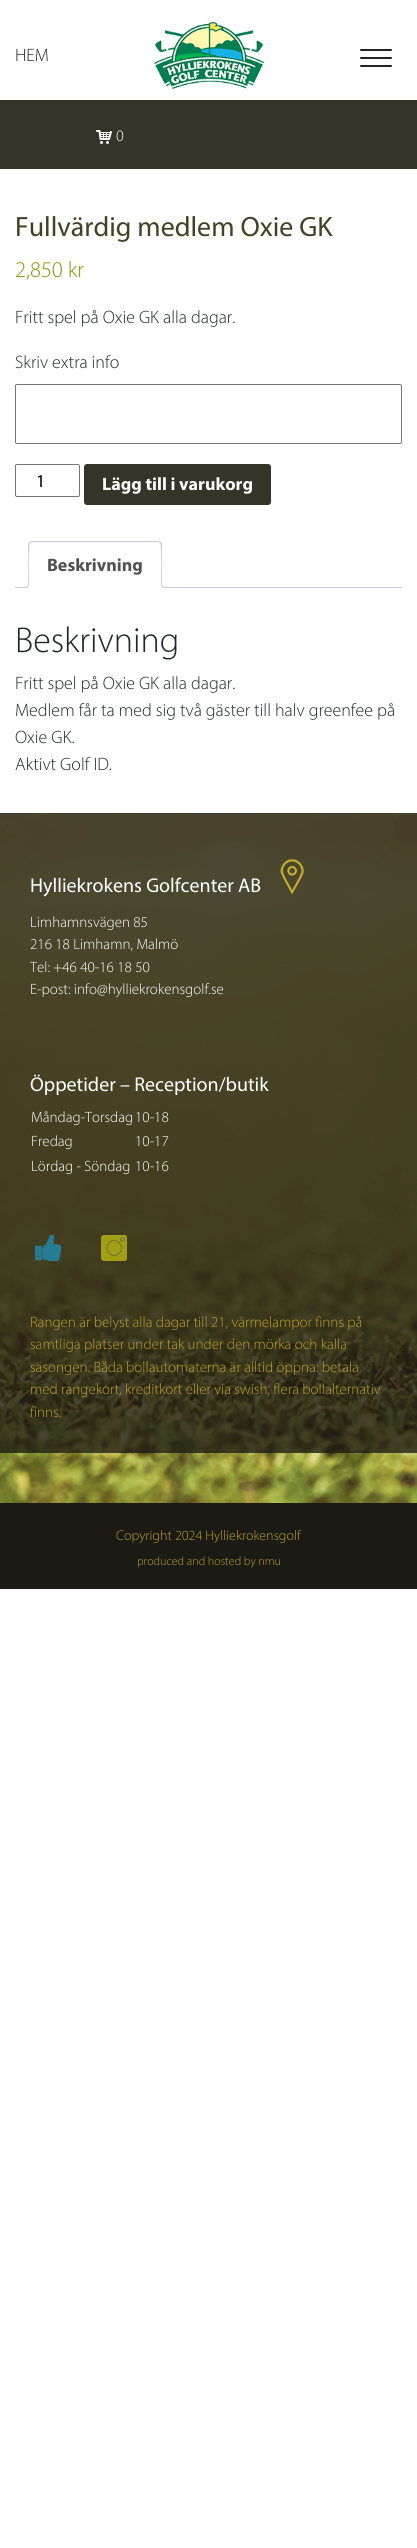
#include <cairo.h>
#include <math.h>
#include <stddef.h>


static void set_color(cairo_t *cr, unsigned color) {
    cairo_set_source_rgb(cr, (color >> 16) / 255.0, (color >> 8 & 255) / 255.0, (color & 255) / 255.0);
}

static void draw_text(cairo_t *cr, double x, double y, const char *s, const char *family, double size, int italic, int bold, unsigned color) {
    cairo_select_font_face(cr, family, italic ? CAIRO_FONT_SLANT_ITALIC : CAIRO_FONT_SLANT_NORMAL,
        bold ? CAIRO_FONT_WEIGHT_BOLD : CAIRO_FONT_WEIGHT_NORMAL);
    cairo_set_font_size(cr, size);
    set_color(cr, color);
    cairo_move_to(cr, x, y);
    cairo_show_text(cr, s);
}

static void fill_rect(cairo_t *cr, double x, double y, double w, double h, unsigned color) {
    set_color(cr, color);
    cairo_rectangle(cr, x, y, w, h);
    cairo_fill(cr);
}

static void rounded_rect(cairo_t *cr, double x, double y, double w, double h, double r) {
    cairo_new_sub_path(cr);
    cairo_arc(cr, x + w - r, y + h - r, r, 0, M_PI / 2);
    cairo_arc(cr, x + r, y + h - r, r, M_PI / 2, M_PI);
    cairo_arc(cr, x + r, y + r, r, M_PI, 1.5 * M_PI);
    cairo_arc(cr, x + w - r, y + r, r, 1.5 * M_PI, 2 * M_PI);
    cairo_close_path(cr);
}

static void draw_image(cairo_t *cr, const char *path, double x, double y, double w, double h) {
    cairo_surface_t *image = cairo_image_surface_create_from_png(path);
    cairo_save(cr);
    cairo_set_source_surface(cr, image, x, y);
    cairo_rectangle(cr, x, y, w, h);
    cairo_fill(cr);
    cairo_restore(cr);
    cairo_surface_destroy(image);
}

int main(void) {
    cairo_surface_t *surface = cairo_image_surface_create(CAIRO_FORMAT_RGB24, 417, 2548);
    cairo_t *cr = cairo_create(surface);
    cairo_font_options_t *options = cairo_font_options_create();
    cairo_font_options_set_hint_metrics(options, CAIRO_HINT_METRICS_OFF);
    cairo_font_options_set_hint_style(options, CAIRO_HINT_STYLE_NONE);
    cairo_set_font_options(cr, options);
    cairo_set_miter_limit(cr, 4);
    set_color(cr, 0xFFFFFF);
    cairo_paint(cr);
    draw_text(cr, 15, 61, "HEM", "Myriad Light", 18, 0, 0, 0x232323);
    draw_image(cr, "assets/img1.png", 154, 22, 110, 67);
    rounded_rect(cr, 360, 49, 32, 2, 1);
    cairo_fill(cr);
    rounded_rect(cr, 360, 57, 32, 2, 1);
    cairo_fill(cr);
    rounded_rect(cr, 360, 65, 32, 2, 1);
    cairo_fill(cr);
    fill_rect(cr, 0, 100, 417, 69, 0x353428);
    draw_image(cr, "assets/img2.png", 96, 130, 16, 14);
    draw_text(cr, 116, 141, "0", "Myriad Light", 16, 0, 0, 0xFFFFFF);
    draw_text(cr, 15, 236, "Fullvärdig medlem Oxie GK", "Myriad", 28, 0, 0, 0x463F23);
    draw_text(cr, 15, 277, "2,850 kr", "Myriad Light", 22.5, 0, 0, 0x958E09);
    draw_text(cr, 15, 323, "Fritt spel på Oxie GK alla dagar.", "Myriad Light", 18, 0, 0, 0x212529);
    draw_text(cr, 15, 368, "Skriv extra info", "Myriad Light", 18, 0, 0, 0x212529);
    rounded_rect(cr, 15.5, 384.5, 386, 59, 1.5);
    set_color(cr, 0x767676);
    cairo_set_line_width(cr, 1);
    cairo_stroke(cr);
    rounded_rect(cr, 15.5, 464.5, 64, 32, 1.5);
    cairo_stroke(cr);
    draw_text(cr, 36, 487, "1", "Myriad", 18, 0, 0, 0x000000);
    set_color(cr, 0x363428);
    rounded_rect(cr, 84, 464, 187, 41, 3);
    cairo_fill(cr);
    draw_text(cr, 102, 490, "Lägg till i varukorg", "Myriad", 18, 0, 1, 0xFFFFFF);
    fill_rect(cr, 15, 587, 387, 1, 0xCFC8D8);
    set_color(cr, 0xFFFFFF);
    cairo_new_path(cr);
    cairo_move_to(cr, 32, 541);
    cairo_line_to(cr, 158, 541);
    cairo_curve_to(cr, 160, 541, 162, 543, 162, 545);
    cairo_line_to(cr, 162, 588);
    cairo_line_to(cr, 28, 588);
    cairo_line_to(cr, 28, 545);
    cairo_curve_to(cr, 28, 543, 30, 541, 32, 541);
    cairo_close_path(cr);
    cairo_fill(cr);
    set_color(cr, 0xCFC8D8);
    cairo_new_path(cr);
    cairo_move_to(cr, 32, 541);
    cairo_line_to(cr, 29, 542);
    cairo_line_to(cr, 30, 543);
    cairo_line_to(cr, 32, 542);
    cairo_line_to(cr, 158, 542);
    cairo_line_to(cr, 160, 543);
    cairo_line_to(cr, 161, 542);
    cairo_line_to(cr, 158, 541);
    cairo_close_path(cr);
    cairo_fill(cr);
    cairo_new_path(cr);
    cairo_move_to(cr, 162, 588);
    cairo_line_to(cr, 162, 545);
    cairo_curve_to(cr, 162, 544, 162, 543, 161, 542);
    cairo_line_to(cr, 160, 543);
    cairo_curve_to(cr, 162, 545, 161, 582, 161, 587);
    cairo_close_path(cr);
    cairo_fill(cr);
    set_color(cr, 0xFFFFFF);
    cairo_new_path(cr);
    cairo_move_to(cr, 162, 588);
    cairo_line_to(cr, 161, 587);
    cairo_line_to(cr, 29, 587);
    cairo_line_to(cr, 28, 588);
    cairo_close_path(cr);
    cairo_fill(cr);
    set_color(cr, 0xCFC8D8);
    cairo_new_path(cr);
    cairo_move_to(cr, 28, 588);
    cairo_line_to(cr, 29, 587);
    cairo_curve_to(cr, 29, 582, 28, 545, 30, 543);
    cairo_line_to(cr, 29, 542);
    cairo_line_to(cr, 28, 545);
    cairo_close_path(cr);
    cairo_fill(cr);
    draw_text(cr, 47, 571, "Beskrivning", "Myriad", 18, 0, 1, 0x515151);
    cairo_save(cr);
    cairo_rectangle(cr, 15, 541, 387, 47);
    cairo_clip(cr);
    set_color(cr, 0xFFFFFF);
    cairo_new_path(cr);
    cairo_move_to(cr, 26, 588);
    cairo_line_to(cr, 26, 590);
    cairo_curve_to(cr, 29.5, 590, 31, 588.5, 31, 585);
    cairo_line_to(cr, 29, 585);
    cairo_curve_to(cr, 28.5, 586.5, 27.5, 587.5, 26, 588);
    cairo_close_path(cr);
    cairo_fill(cr);
    cairo_restore(cr);
    set_color(cr, 0xCFC8D8);
    cairo_set_fill_rule(cr, CAIRO_FILL_RULE_EVEN_ODD);
    cairo_new_path(cr);
    cairo_move_to(cr, 24, 583);
    cairo_line_to(cr, 29, 583);
    cairo_curve_to(cr, 29, 586.5, 27.5, 588, 24, 588);
    cairo_close_path(cr);
    cairo_move_to(cr, 24, 583);
    cairo_line_to(cr, 28, 583);
    cairo_curve_to(cr, 28, 586, 27, 587, 24, 587);
    cairo_close_path(cr);
    cairo_fill(cr);
    cairo_save(cr);
    cairo_set_fill_rule(cr, CAIRO_FILL_RULE_WINDING);
    cairo_rectangle(cr, 15, 541, 387, 47);
    cairo_clip(cr);
    set_color(cr, 0xFFFFFF);
    cairo_new_path(cr);
    cairo_move_to(cr, 159, 585);
    cairo_curve_to(cr, 159, 588.5, 160.5, 590, 164, 590);
    cairo_line_to(cr, 164, 588);
    cairo_curve_to(cr, 162.5, 587.5, 161.5, 586.5, 161, 585);
    cairo_close_path(cr);
    cairo_fill(cr);
    cairo_restore(cr);
    cairo_new_path(cr);
    cairo_move_to(cr, 161, 583);
    cairo_line_to(cr, 166, 583);
    cairo_line_to(cr, 166, 588);
    cairo_curve_to(cr, 163.5, 588, 161, 587, 161, 584);
    cairo_close_path(cr);
    cairo_move_to(cr, 162, 583);
    cairo_line_to(cr, 166, 583);
    cairo_line_to(cr, 166, 587);
    cairo_curve_to(cr, 164, 587, 162, 586.5, 162, 584);
    cairo_close_path(cr);
    cairo_fill(cr);
    draw_text(cr, 15, 652, "Beskrivning", "Myriad Light", 36, 0, 0, 0x212529);
    draw_text(cr, 15, 689, "Fritt spel på Oxie GK alla dagar.", "Myriad Light", 18, 0, 0, 0x212529);
    draw_text(cr, 15, 716, "Medlem får ta med sig två gäster till halv greenfee på", "Myriad Light", 18, 0, 0, 0x212529);
    draw_text(cr, 15, 743, "Oxie GK.", "Myriad Light", 18, 0, 0, 0x212529);
    draw_text(cr, 15, 770, "Aktivt Golf ID.", "Myriad Light", 18, 0, 0, 0x212529);
    draw_image(cr, "assets/img3.png", 0, 813, 417, 690);
    cairo_set_source_rgba(cr, 0.106, 0.102, 0.071, 0.78);
    cairo_rectangle(cr, 0, 813, 417, 640);
    cairo_fill(cr);
    draw_text(cr, 30, 892, "Hylliekrokens Golfcenter AB", "Myriad", 20, 0, 0, 0xFFFFFF);
    draw_image(cr, "assets/img4.png", 280, 859, 24, 35);
    draw_text(cr, 30, 927, "Limhamnsvägen 85", "Myriad Light", 15, 0, 0, 0xFFFFFF);
    draw_text(cr, 30, 949, "216 18 Limhamn, Malmö", "Myriad Light", 15, 0, 0, 0xFFFFFF);
    draw_text(cr, 30, 972, "Tel: +46 40-16 18 50", "Myriad Light", 15, 0, 0, 0xFFFFFF);
    draw_text(cr, 30, 994, "E-post: info@hylliekrokensgolf.se", "Myriad Light", 15, 0, 0, 0xFFFFFF);
    draw_text(cr, 30, 1091, "Öppetider – Reception/butik", "Myriad", 20, 0, 0, 0xFFFFFF);
    draw_text(cr, 31, 1122, "Måndag-Torsdag", "Myriad Light", 15, 0, 0, 0xFFFFFF);
    draw_text(cr, 135, 1122, "10-18", "Myriad Light", 15, 0, 0, 0xFFFFFF);
    draw_text(cr, 31, 1146, "Fredag", "Myriad Light", 15, 0, 0, 0xFFFFFF);
    draw_text(cr, 135, 1146, "10-17", "Myriad Light", 15, 0, 0, 0xFFFFFF);
    draw_text(cr, 31, 1171, "Lördag - Söndag", "Myriad Light", 15, 0, 0, 0xFFFFFF);
    draw_text(cr, 135, 1171, "10-16", "Myriad Light", 15, 0, 0, 0xFFFFFF);
    draw_image(cr, "assets/img5.png", 35, 1235, 26, 26);
    draw_image(cr, "assets/img6.png", 101, 1235, 26, 26);
    draw_text(cr, 30, 1327, "Rangen är belyst alla dagar till 21, värmelampor finns på", "Myriad Light", 15, 0, 0, 0xBAA030);
    draw_text(cr, 30, 1349, "samtliga platser under tak under den mörka och kalla", "Myriad Light", 15, 0, 0, 0xBAA030);
    draw_text(cr, 30, 1372, "säsongen. Båda bollautomaterna är alltid öppna: betala", "Myriad Light", 15, 0, 0, 0xBAA030);
    draw_text(cr, 30, 1394, "med rangekort, kreditkort eller via swish, flera bollalternativ", "Myriad Light", 15, 0, 0, 0xBAA030);
    draw_text(cr, 30, 1417, "finns.", "Myriad Light", 15, 0, 0, 0xBAA030);
    fill_rect(cr, 0, 1503, 417, 86, 0x1B1A14);
    draw_text(cr, 116, 1540, "Copyright 2024 Hylliekrokensgolf", "Myriad Light", 14, 0, 0, 0xBAA030);
    draw_text(cr, 137, 1565, "produced and hosted by nmu", "Myriad Light", 12, 0, 0, 0xBAA030);
    cairo_surface_write_to_png(surface, "output.png");
    cairo_font_options_destroy(options);
    cairo_destroy(cr);
    cairo_surface_destroy(surface);
    return 0;
}
